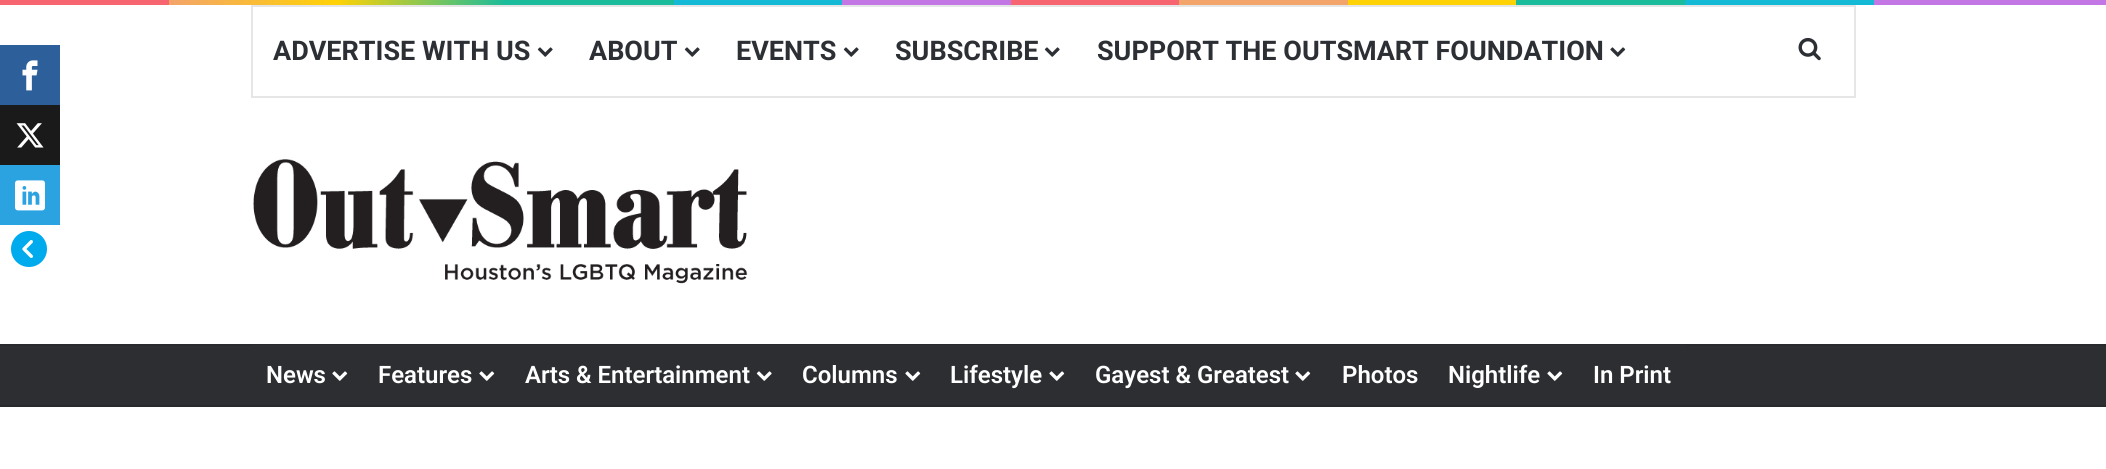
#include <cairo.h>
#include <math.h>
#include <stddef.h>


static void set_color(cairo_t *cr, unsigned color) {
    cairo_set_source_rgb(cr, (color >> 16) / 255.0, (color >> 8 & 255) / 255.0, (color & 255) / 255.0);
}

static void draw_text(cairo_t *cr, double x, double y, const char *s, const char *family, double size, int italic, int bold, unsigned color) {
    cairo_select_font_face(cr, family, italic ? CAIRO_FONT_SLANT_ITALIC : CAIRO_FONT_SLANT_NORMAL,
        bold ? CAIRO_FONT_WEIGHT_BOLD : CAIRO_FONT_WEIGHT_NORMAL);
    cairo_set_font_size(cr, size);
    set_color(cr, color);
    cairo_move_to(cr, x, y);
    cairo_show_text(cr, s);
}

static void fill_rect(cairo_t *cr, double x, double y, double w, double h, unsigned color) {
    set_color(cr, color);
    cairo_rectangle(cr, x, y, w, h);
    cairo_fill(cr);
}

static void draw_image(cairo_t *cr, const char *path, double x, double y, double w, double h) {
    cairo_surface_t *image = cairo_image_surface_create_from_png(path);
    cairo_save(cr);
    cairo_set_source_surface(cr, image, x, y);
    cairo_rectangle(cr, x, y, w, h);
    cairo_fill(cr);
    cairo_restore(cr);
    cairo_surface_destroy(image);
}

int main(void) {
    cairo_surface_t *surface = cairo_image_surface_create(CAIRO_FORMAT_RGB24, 2106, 469);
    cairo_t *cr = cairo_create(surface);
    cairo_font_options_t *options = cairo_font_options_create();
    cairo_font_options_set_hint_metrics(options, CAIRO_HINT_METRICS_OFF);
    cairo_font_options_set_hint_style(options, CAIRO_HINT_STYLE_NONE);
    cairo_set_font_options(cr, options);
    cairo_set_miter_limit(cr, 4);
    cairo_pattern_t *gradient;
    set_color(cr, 0xFFFFFF);
    cairo_paint(cr);
    fill_rect(cr, 0, 45, 60, 60, 0x2D5F9A);
    draw_image(cr, "assets/img1.png", 22, 60, 16, 31);
    fill_rect(cr, 0, 105, 60, 60, 0x1A1A1A);
    draw_image(cr, "assets/img2.png", 16, 123, 28, 25);
    fill_rect(cr, 0, 165, 60, 60, 0x2BA3E1);
    draw_image(cr, "assets/img3.png", 15, 180, 30, 31);
    set_color(cr, 0x00ABED);
    cairo_arc(cr, 29, 249, 18, 0, 2 * M_PI);
    cairo_fill(cr);
    draw_image(cr, "assets/img4.png", 22, 240, 11, 18);
    gradient = cairo_pattern_create_linear(0, 2.3, 2106, 2.2);
    cairo_pattern_add_color_stop_rgba(gradient, 0, 0.969, 0.396, 0.439, 1);
    cairo_pattern_add_color_stop_rgba(gradient, 0.08, 0.969, 0.396, 0.439, 1);
    cairo_pattern_add_color_stop_rgba(gradient, 0.08, 0.953, 0.643, 0.42, 1);
    cairo_pattern_add_color_stop_rgba(gradient, 0.16, 1, 0.824, 0.02, 1);
    cairo_pattern_add_color_stop_rgba(gradient, 0.24, 0.106, 0.737, 0.608, 1);
    cairo_pattern_add_color_stop_rgba(gradient, 0.32, 0.106, 0.737, 0.608, 1);
    cairo_pattern_add_color_stop_rgba(gradient, 0.32, 0.078, 0.725, 0.835, 1);
    cairo_pattern_add_color_stop_rgba(gradient, 0.4, 0.078, 0.725, 0.835, 1);
    cairo_pattern_add_color_stop_rgba(gradient, 0.4, 0.765, 0.467, 0.894, 1);
    cairo_pattern_add_color_stop_rgba(gradient, 0.48, 0.765, 0.467, 0.894, 1);
    cairo_pattern_add_color_stop_rgba(gradient, 0.48, 0.969, 0.396, 0.439, 1);
    cairo_pattern_add_color_stop_rgba(gradient, 0.56, 0.969, 0.396, 0.439, 1);
    cairo_pattern_add_color_stop_rgba(gradient, 0.56, 0.953, 0.643, 0.42, 1);
    cairo_pattern_add_color_stop_rgba(gradient, 0.64, 0.953, 0.643, 0.42, 1);
    cairo_pattern_add_color_stop_rgba(gradient, 0.64, 1, 0.824, 0.02, 1);
    cairo_pattern_add_color_stop_rgba(gradient, 0.72, 1, 0.824, 0.02, 1);
    cairo_pattern_add_color_stop_rgba(gradient, 0.72, 0.106, 0.737, 0.608, 1);
    cairo_pattern_add_color_stop_rgba(gradient, 0.8, 0.106, 0.737, 0.608, 1);
    cairo_pattern_add_color_stop_rgba(gradient, 0.8, 0.078, 0.725, 0.835, 1);
    cairo_pattern_add_color_stop_rgba(gradient, 0.89, 0.078, 0.725, 0.835, 1);
    cairo_pattern_add_color_stop_rgba(gradient, 0.89, 0.765, 0.467, 0.894, 1);
    cairo_pattern_add_color_stop_rgba(gradient, 1, 0.765, 0.467, 0.894, 1);
    cairo_set_source(cr, gradient);
    cairo_pattern_destroy(gradient);
    cairo_rectangle(cr, 0, 0, 2106, 5);
    cairo_fill(cr);
    cairo_rectangle(cr, 252, 6, 1603, 91);
    set_color(cr, 0xE6E6E6);
    cairo_stroke(cr);
    draw_text(cr, 273, 60, "ADVERTISE WITH US", "Roboto", 27, 0, 1, 0x2C2F34);
    draw_image(cr, "assets/img5.png", 537, 47, 16, 10);
    draw_text(cr, 589, 60, "ABOUT", "Roboto", 27, 0, 1, 0x2C2F34);
    draw_image(cr, "assets/img5.png", 684, 47, 16, 10);
    draw_text(cr, 736, 60, "EVENTS", "Roboto", 27, 0, 1, 0x2C2F34);
    draw_image(cr, "assets/img5.png", 843, 47, 16, 10);
    draw_text(cr, 895, 60, "SUBSCRIBE", "Roboto", 27, 0, 1, 0x2C2F34);
    draw_image(cr, "assets/img5.png", 1044, 47, 16, 10);
    draw_text(cr, 1097, 60, "SUPPORT THE OUTSMART FOUNDATION", "Roboto", 27, 0, 1, 0x2C2F34);
    draw_image(cr, "assets/img6.png", 1610, 47, 16, 10);
    draw_image(cr, "assets/img7.png", 1798, 37, 23, 24);
    draw_image(cr, "assets/img8.png", 253, 159, 495, 125);
    fill_rect(cr, 0, 346, 2106, 59, 0x2C2E32);
    fill_rect(cr, 0, 344, 2106, 2, 0x28292D);
    fill_rect(cr, 0, 405, 2106, 2, 0x28292D);
    fill_rect(cr, 251, 345, 1435, 1, 0x2C2E32);
    draw_text(cr, 266, 383, "News", "Roboto SemiBold", 24, 0, 0, 0xFFFFFF);
    draw_image(cr, "assets/img9.png", 332, 371, 16, 10);
    draw_text(cr, 378, 383, "Features", "Roboto SemiBold", 24, 0, 0, 0xFFFFFF);
    draw_image(cr, "assets/img9.png", 479, 371, 16, 10);
    draw_text(cr, 525, 383, "Arts & Entertainment", "Roboto SemiBold", 24, 0, 0, 0xFFFFFF);
    draw_image(cr, "assets/img10.png", 756, 371, 16, 10);
    draw_text(cr, 802, 383, "Columns", "Roboto SemiBold", 24, 0, 0, 0xFFFFFF);
    draw_image(cr, "assets/img9.png", 905, 371, 16, 10);
    draw_text(cr, 950, 383, "Lifestyle", "Roboto SemiBold", 24, 0, 0, 0xFFFFFF);
    draw_image(cr, "assets/img9.png", 1049, 371, 16, 10);
    draw_text(cr, 1095, 383, "Gayest & Greatest", "Roboto SemiBold", 24, 0, 0, 0xFFFFFF);
    draw_image(cr, "assets/img9.png", 1295, 371, 16, 10);
    draw_text(cr, 1342, 383, "Photos", "Roboto SemiBold", 24, 0, 0, 0xFFFFFF);
    draw_text(cr, 1448, 383, "Nightlife", "Roboto SemiBold", 24, 0, 0, 0xFFFFFF);
    draw_image(cr, "assets/img9.png", 1547, 371, 16, 10);
    draw_text(cr, 1593, 383, "In Print", "Roboto SemiBold", 24, 0, 0, 0xFFFFFF);
    cairo_surface_write_to_png(surface, "output.png");
    cairo_font_options_destroy(options);
    cairo_destroy(cr);
    cairo_surface_destroy(surface);
    return 0;
}
